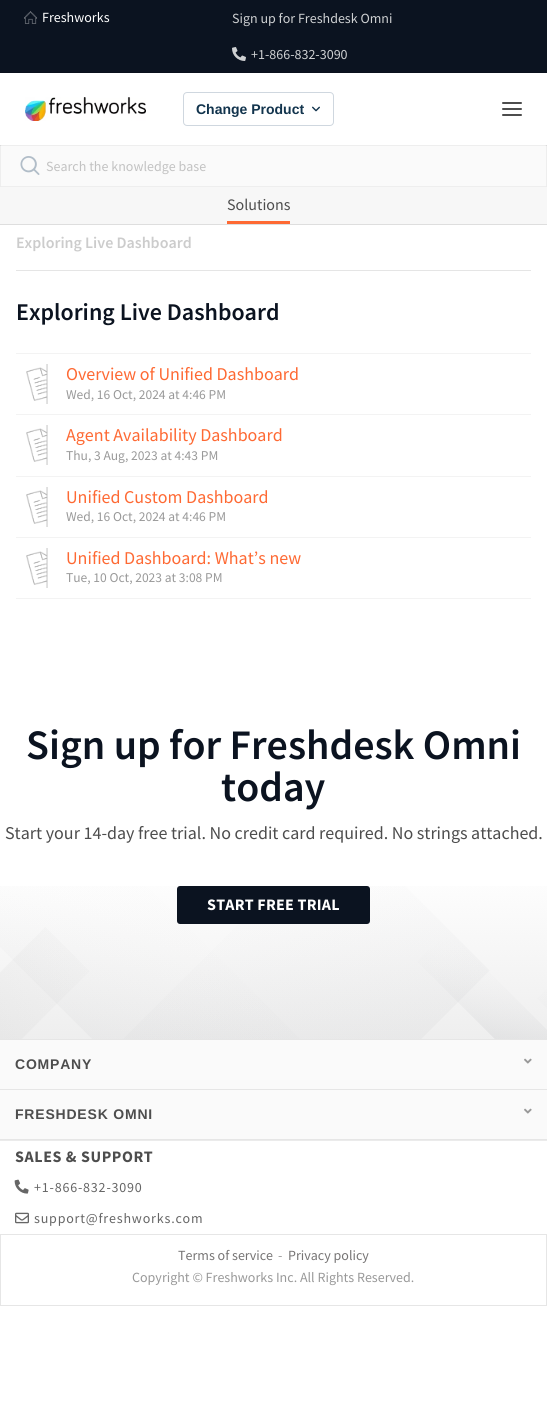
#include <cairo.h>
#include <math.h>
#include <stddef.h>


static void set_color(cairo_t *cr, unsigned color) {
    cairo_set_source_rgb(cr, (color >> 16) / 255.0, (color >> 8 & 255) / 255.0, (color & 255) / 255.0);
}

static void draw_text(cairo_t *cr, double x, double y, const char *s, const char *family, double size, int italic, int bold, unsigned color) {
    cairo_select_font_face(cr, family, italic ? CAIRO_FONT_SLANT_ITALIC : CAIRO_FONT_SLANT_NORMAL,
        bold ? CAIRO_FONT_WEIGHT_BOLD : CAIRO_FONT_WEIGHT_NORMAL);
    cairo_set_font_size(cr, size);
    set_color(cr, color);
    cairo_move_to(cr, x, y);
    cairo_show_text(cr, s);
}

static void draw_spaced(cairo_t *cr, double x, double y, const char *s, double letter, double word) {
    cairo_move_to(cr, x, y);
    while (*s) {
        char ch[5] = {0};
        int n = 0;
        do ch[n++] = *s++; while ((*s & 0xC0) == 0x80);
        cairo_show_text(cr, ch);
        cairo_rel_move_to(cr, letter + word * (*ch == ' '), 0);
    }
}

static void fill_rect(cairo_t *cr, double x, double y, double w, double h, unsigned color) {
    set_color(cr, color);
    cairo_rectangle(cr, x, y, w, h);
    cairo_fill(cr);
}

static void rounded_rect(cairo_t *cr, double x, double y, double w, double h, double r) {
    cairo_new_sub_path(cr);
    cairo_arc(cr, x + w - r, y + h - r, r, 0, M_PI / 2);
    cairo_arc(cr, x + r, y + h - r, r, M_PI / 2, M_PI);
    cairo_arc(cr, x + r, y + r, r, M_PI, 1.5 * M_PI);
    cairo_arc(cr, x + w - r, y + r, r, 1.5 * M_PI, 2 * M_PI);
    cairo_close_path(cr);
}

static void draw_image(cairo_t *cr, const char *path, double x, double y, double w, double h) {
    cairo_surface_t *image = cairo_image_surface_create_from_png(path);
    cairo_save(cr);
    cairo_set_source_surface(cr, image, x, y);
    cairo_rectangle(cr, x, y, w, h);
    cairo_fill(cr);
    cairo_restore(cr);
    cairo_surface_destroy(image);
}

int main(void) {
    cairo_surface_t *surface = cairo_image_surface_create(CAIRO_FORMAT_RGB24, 547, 1412);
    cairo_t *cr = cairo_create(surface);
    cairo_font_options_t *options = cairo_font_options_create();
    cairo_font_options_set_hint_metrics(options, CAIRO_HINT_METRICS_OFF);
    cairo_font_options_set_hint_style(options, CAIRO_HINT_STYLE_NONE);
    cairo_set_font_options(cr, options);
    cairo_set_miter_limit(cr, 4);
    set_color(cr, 0xFFFFFF);
    cairo_paint(cr);
    fill_rect(cr, 0, 0, 547, 72, 0x0B1320);
    fill_rect(cr, 0, 72, 547, 1, 0x0A111D);
    draw_image(cr, "assets/img1.png", 24, 11, 13, 13);
    draw_text(cr, 42, 22, "Freshworks", "Source Sans Pro", 14, 0, 0, 0xFFFFFF);
    draw_text(cr, 232, 23, "Sign up for Freshdesk Omni", "Source Sans Pro", 14, 0, 0, 0xCED0D2);
    draw_image(cr, "assets/img2.png", 232, 47, 14, 14);
    draw_text(cr, 251, 59, "+1-866-832-3090", "Source Sans Pro", 14, 0, 0, 0xCED0D2);
    draw_image(cr, "assets/img3.png", 25, 97, 121, 24);
    rounded_rect(cr, 183.5, 92.5, 150, 33, 3.5);
    set_color(cr, 0xCFD7DF);
    cairo_set_line_width(cr, 1);
    cairo_stroke(cr);
    draw_text(cr, 196, 114, "Change Product", "Liberation Sans", 14, 0, 1, 0x12344D);
    draw_image(cr, "assets/img4.png", 312, 106, 8, 6);
    cairo_new_path(cr);
    cairo_move_to(cr, 503, 103);
    cairo_line_to(cr, 521, 103);
    cairo_move_to(cr, 503, 109);
    cairo_line_to(cr, 521, 109);
    cairo_move_to(cr, 503, 115);
    cairo_line_to(cr, 521, 115);
    set_color(cr, 0x4D4D4D);
    cairo_set_line_width(cr, 2);
    cairo_set_line_cap(cr, CAIRO_LINE_CAP_ROUND);
    cairo_stroke(cr);
    fill_rect(cr, 0, 146, 547, 78, 0xF7F7F7);
    fill_rect(cr, 0, 145, 547, 1, 0xDEDEDE);
    set_color(cr, 0xFAFAFA);
    rounded_rect(cr, 0, 145, 547, 42, 2);
    cairo_fill(cr);
    cairo_rectangle(cr, 0.5, 145.5, 546, 41);
    cairo_set_source_rgba(cr, 0, 0, 0, 0.05);
    cairo_set_line_width(cr, 1);
    cairo_set_line_cap(cr, CAIRO_LINE_CAP_BUTT);
    cairo_stroke(cr);
    draw_image(cr, "assets/img5.png", 20, 156, 20, 19);
    draw_text(cr, 46, 171, "Search the knowledge base", "Source Sans Pro", 14, 0, 0, 0xC2C2C2);
    fill_rect(cr, 0, 224, 547, 1, 0xDEDEDE);
    fill_rect(cr, 227, 221, 63, 3, 0xFE6933);
    draw_text(cr, 227, 210, "Solutions", "Source Sans Pro", 16, 0, 0, 0x4D4D4D);
    fill_rect(cr, 16, 270, 515, 1, 0xE5E5E5);
    draw_text(cr, 16, 248, "Exploring Live Dashboard", "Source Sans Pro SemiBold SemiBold", 16, 0, 0, 0xCCCCCC);
    draw_text(cr, 16, 320, "Exploring Live Dashboard", "Source Sans Pro SemiBold SemiBold", 24, 0, 0, 0x0B1320);
    fill_rect(cr, 16, 598, 515, 1, 0xF3F3F3);
    fill_rect(cr, 16, 353, 515, 1, 0xF3F3F3);
    draw_image(cr, "assets/img6.png", 26, 364, 22, 40);
    draw_text(cr, 66, 380, "Overview of Unified Dashboard", "Source Sans Pro", 18, 0, 0, 0xFE6933);
    draw_text(cr, 66, 399, "Wed, 16 Oct, 2024 at 4:46 PM", "Source Sans Pro", 13.5, 0, 0, 0x999999);
    fill_rect(cr, 16, 414, 515, 1, 0xF3F3F3);
    draw_image(cr, "assets/img6.png", 26, 425, 22, 40);
    draw_text(cr, 66, 441, "Agent Availability Dashboard", "Source Sans Pro", 18, 0, 0, 0xFE6933);
    draw_text(cr, 66, 460, "Thu, 3 Aug, 2023 at 4:43 PM", "Source Sans Pro", 13.5, 0, 0, 0x999999);
    fill_rect(cr, 16, 476, 515, 1, 0xF3F3F3);
    draw_image(cr, "assets/img6.png", 26, 487, 22, 40);
    draw_text(cr, 66, 503, "Unified Custom Dashboard", "Source Sans Pro", 18, 0, 0, 0xFE6933);
    draw_text(cr, 66, 521, "Wed, 16 Oct, 2024 at 4:46 PM", "Source Sans Pro", 13.5, 0, 0, 0x999999);
    fill_rect(cr, 16, 537, 515, 1, 0xF3F3F3);
    draw_image(cr, "assets/img6.png", 26, 548, 22, 40);
    draw_text(cr, 66, 564, "Unified Dashboard: What’s new", "Source Sans Pro", 18, 0, 0, 0xFE6933);
    draw_text(cr, 66, 582, "Tue, 10 Oct, 2023 at 3:08 PM", "Source Sans Pro", 13.5, 0, 0, 0x999999);
    draw_image(cr, "assets/img7.png", 0, 886, 547, 153);
    draw_text(cr, 26, 759, "Sign up for Freshdesk Omni", "Source Sans Pro SemiBold SemiBold", 42, 0, 0, 0x0B1320);
    draw_text(cr, 221, 801, "today", "Source Sans Pro SemiBold SemiBold", 42, 0, 0, 0x0B1320);
    draw_text(cr, 5, 839, "Start your 14-day free trial. No credit card required. No strings attached.", "Source Sans Pro", 18, 0, 0, 0x4D4D4D);
    set_color(cr, 0x0B1320);
    rounded_rect(cr, 177, 886, 193, 38, 3);
    cairo_fill(cr);
    cairo_select_font_face(cr, "Source Sans Pro", CAIRO_FONT_SLANT_NORMAL, CAIRO_FONT_WEIGHT_BOLD);
    cairo_set_font_size(cr, 16);
    set_color(cr, 0xFFFFFF);
    draw_spaced(cr, 207, 910, "START FREE TRIAL", 0.25, 0);
    fill_rect(cr, 0, 1039, 547, 1, 0xE6E6E6);
    fill_rect(cr, 0, 1040, 547, 49, 0xFAFAFA);
    fill_rect(cr, 0, 1089, 547, 1, 0xE6E6E6);
    cairo_select_font_face(cr, "Liberation Sans", CAIRO_FONT_SLANT_NORMAL, CAIRO_FONT_WEIGHT_BOLD);
    cairo_set_font_size(cr, 14);
    set_color(cr, 0x4D4D4D);
    draw_spaced(cr, 15, 1069, "COMPANY", 0.8, 0);
    draw_image(cr, "assets/img8.png", 524, 1058, 8, 6);
    fill_rect(cr, 0, 1090, 547, 49, 0xFAFAFA);
    fill_rect(cr, 0, 1139, 547, 1, 0xE6E6E6);
    set_color(cr, 0x4D4D4D);
    draw_spaced(cr, 15, 1119, "FRESHDESK OMNI", 0.8, 0);
    draw_image(cr, "assets/img8.png", 524, 1108, 8, 6);
    fill_rect(cr, 0, 1140, 547, 1, 0xEBEBEB);
    cairo_select_font_face(cr, "Source Sans Pro", CAIRO_FONT_SLANT_NORMAL, CAIRO_FONT_WEIGHT_BOLD);
    cairo_set_font_size(cr, 16);
    set_color(cr, 0x4D4D4D);
    draw_spaced(cr, 15, 1162, "SALES & SUPPORT", 0.6, 0);
    draw_image(cr, "assets/img9.png", 14, 1179, 15, 15);
    cairo_select_font_face(cr, "Source Sans Pro", CAIRO_FONT_SLANT_NORMAL, CAIRO_FONT_WEIGHT_NORMAL);
    cairo_set_font_size(cr, 14);
    set_color(cr, 0x666666);
    draw_spaced(cr, 34, 1192, "+1-866-832-3090", 0.8, 0);
    draw_image(cr, "assets/img10.png", 15, 1212, 14, 12);
    draw_spaced(cr, 34, 1223, "support@freshworks.com", 0.8, 0);
    cairo_rectangle(cr, 0.5, 1234.5, 546, 71);
    set_color(cr, 0xE6E6E6);
    cairo_stroke(cr);
    draw_text(cr, 178, 1260, "Terms of service", "Source Sans Pro", 14, 0, 0, 0x767474);
    draw_text(cr, 278, 1260, "-", "Source Sans Pro", 14, 0, 0, 0x999999);
    draw_text(cr, 288, 1260, "Privacy policy", "Source Sans Pro", 14, 0, 0, 0x767474);
    draw_text(cr, 132, 1282, "Copyright © Freshworks Inc. All Rights Reserved.", "Source Sans Pro", 14, 0, 0, 0x999999);
    cairo_surface_write_to_png(surface, "output.png");
    cairo_font_options_destroy(options);
    cairo_destroy(cr);
    cairo_surface_destroy(surface);
    return 0;
}
